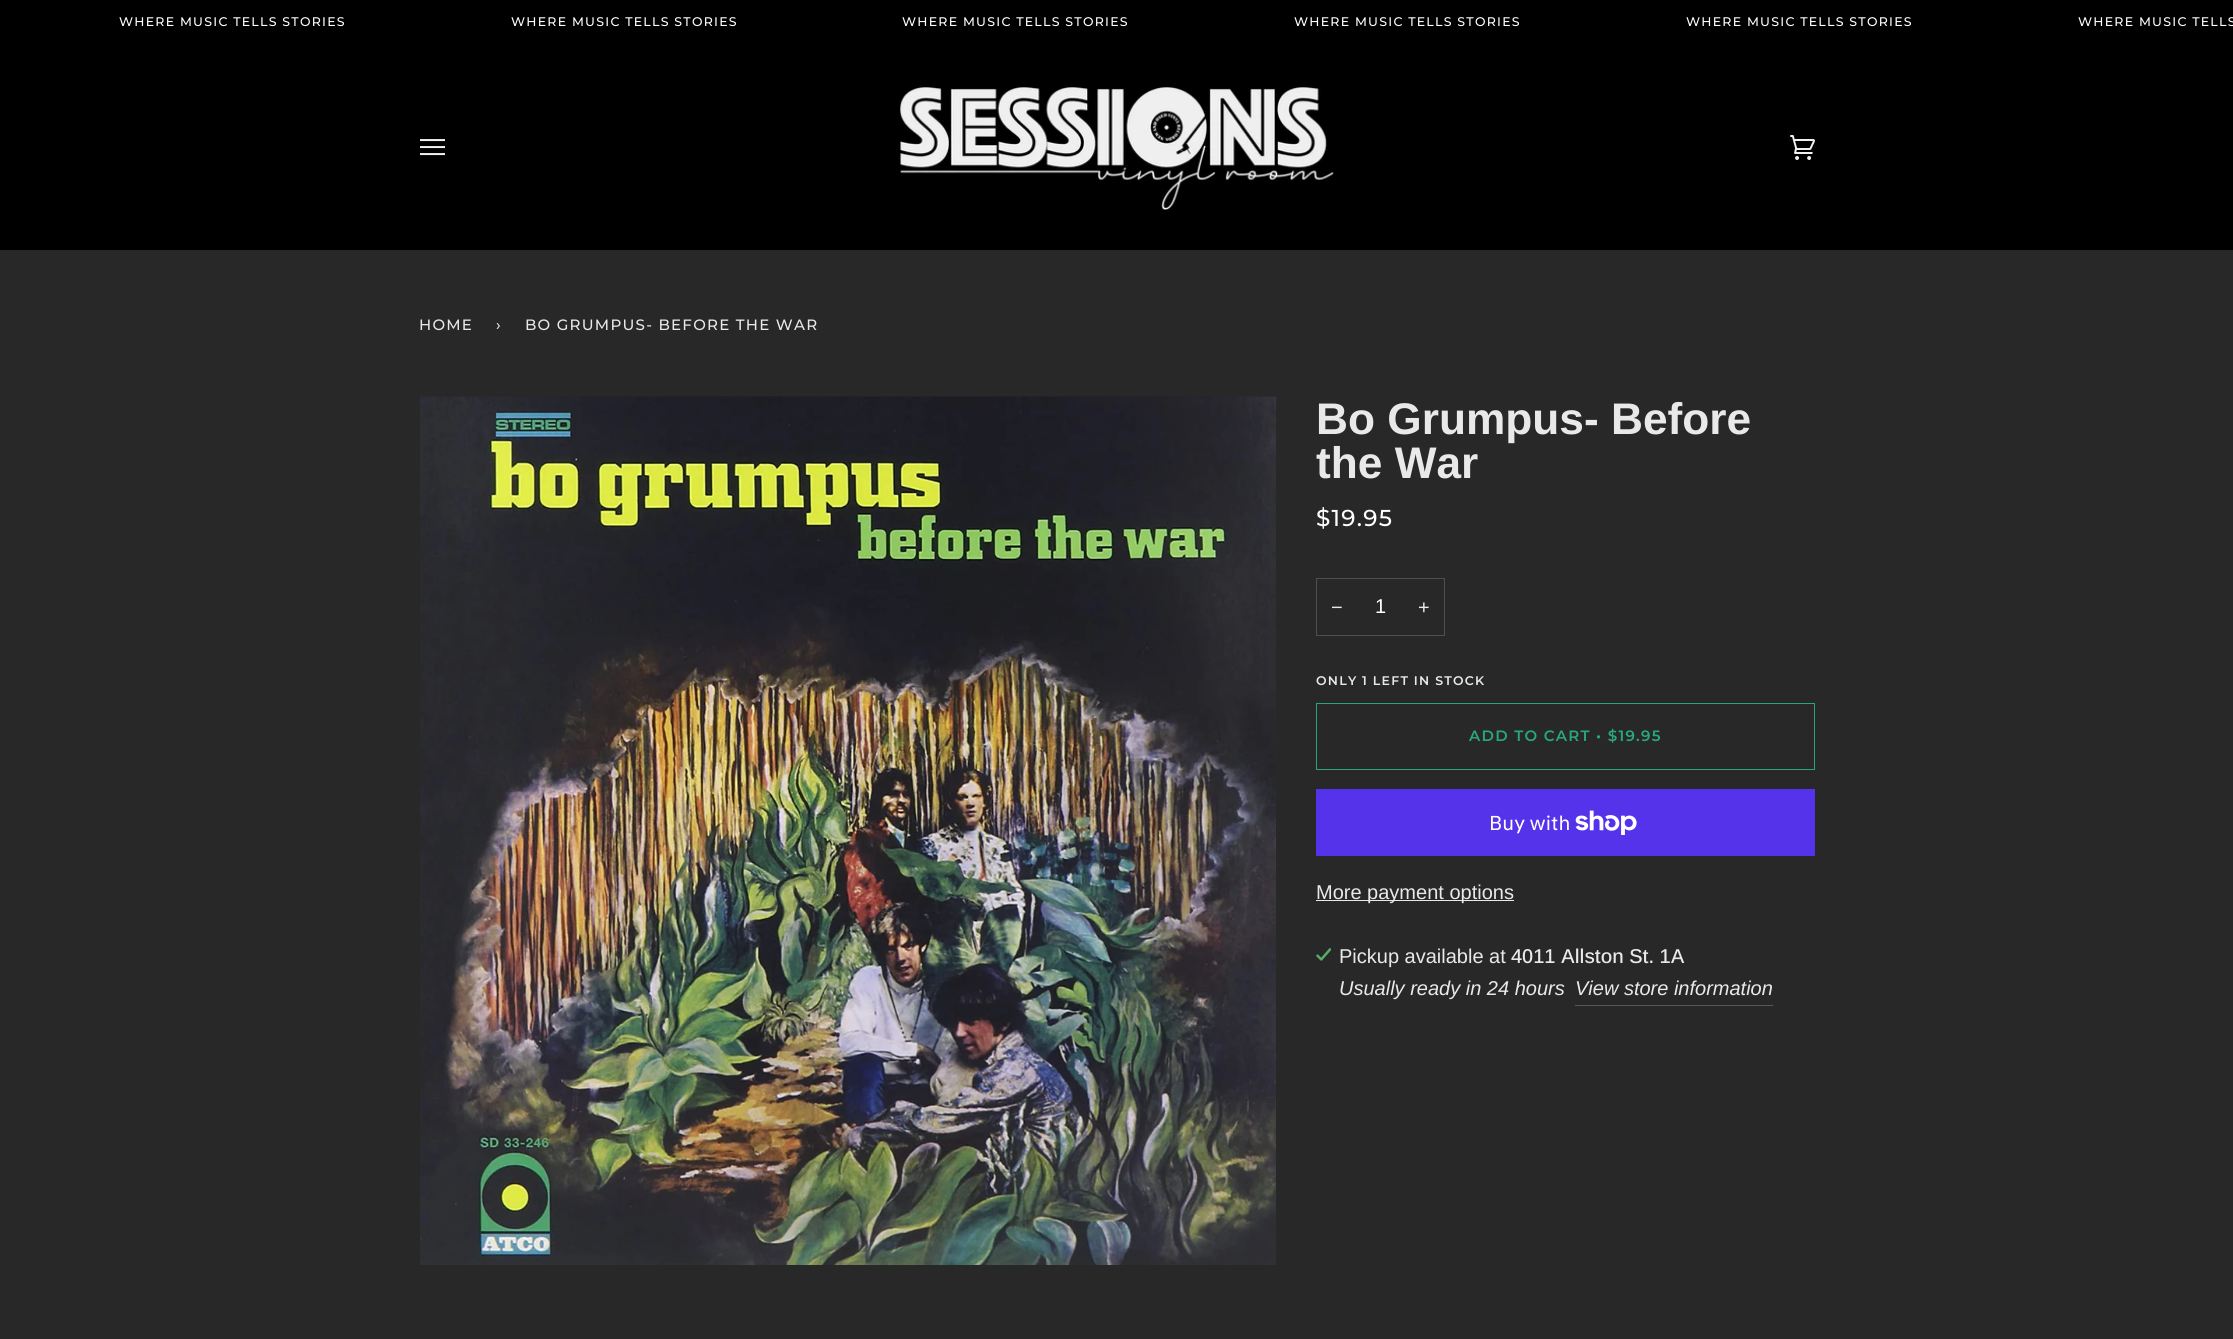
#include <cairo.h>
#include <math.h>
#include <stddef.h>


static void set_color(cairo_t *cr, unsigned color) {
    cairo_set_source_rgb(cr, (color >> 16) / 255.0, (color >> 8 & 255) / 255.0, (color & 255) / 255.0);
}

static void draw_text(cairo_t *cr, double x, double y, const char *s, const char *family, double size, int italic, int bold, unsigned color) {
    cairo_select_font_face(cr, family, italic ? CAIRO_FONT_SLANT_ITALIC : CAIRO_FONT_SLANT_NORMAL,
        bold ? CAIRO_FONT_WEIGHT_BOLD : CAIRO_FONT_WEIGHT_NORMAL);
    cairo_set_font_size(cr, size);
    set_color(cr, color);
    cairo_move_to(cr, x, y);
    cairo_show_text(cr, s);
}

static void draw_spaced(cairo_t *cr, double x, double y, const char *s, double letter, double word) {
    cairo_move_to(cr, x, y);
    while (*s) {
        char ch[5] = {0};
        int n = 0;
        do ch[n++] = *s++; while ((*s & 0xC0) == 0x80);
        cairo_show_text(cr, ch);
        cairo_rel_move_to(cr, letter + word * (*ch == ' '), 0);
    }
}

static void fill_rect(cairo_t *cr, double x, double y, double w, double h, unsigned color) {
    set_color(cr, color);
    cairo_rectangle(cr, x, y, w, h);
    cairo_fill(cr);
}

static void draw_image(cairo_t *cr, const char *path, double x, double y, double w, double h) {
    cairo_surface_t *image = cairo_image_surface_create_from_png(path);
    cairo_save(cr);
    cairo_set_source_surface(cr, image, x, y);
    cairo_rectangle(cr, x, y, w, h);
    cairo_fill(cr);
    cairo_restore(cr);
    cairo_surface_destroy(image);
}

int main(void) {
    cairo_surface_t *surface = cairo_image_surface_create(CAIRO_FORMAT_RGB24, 2233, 1339);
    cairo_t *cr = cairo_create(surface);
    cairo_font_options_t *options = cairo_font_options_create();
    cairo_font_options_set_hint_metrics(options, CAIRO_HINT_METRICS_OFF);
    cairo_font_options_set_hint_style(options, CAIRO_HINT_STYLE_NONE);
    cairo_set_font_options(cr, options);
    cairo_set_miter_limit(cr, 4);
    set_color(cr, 0x282828);
    cairo_paint(cr);
    fill_rect(cr, 0, 0, 2233, 250, 0x000000);
    draw_image(cr, "assets/img1.png", 420, 139, 25, 17);
    draw_image(cr, "assets/img2.png", 898, 85, 436, 125);
    draw_image(cr, "assets/img3.png", 1790, 135, 25, 25);
    cairo_select_font_face(cr, "Montserrat Medium", CAIRO_FONT_SLANT_NORMAL, CAIRO_FONT_WEIGHT_NORMAL);
    cairo_set_font_size(cr, 12.5);
    set_color(cr, 0xFFFFFF);
    draw_spaced(cr, 119, 26, "WHERE MUSIC TELLS STORIES", 1.25, 0);
    draw_spaced(cr, 511, 26, "WHERE MUSIC TELLS STORIES", 1.25, 0);
    draw_spaced(cr, 902, 26, "WHERE MUSIC TELLS STORIES", 1.25, 0);
    draw_spaced(cr, 1294, 26, "WHERE MUSIC TELLS STORIES", 1.25, 0);
    draw_spaced(cr, 1686, 26, "WHERE MUSIC TELLS STORIES", 1.25, 0);
    draw_spaced(cr, 2078, 26, "WHERE MUSIC TELLS", 1.25, 0);
    cairo_set_font_size(cr, 15);
    set_color(cr, 0xE9E9E9);
    draw_spaced(cr, 419, 330, "HOME", 1.25, 0);
    draw_spaced(cr, 496, 330, "›", 1.25, 0);
    draw_spaced(cr, 525, 330, "BO GRUMPUS- BEFORE THE WAR", 1.25, 0);
    draw_image(cr, "assets/img4.png", 420, 396, 856, 869);
    draw_text(cr, 1316, 434, "Bo Grumpus- Before", "Arimo", 44.25, 0, 1, 0xE9E9E9);
    draw_text(cr, 1316, 478, "the War", "Arimo", 44.25, 0, 1, 0xE9E9E9);
    cairo_select_font_face(cr, "Montserrat Medium", CAIRO_FONT_SLANT_NORMAL, CAIRO_FONT_WEIGHT_NORMAL);
    cairo_set_font_size(cr, 23);
    set_color(cr, 0xFFFFFF);
    draw_spaced(cr, 1316, 526, "$19.95", 1.25, 0);
    cairo_rectangle(cr, 1316.5, 578.5, 128, 57);
    set_color(cr, 0x4F4F4F);
    cairo_set_line_width(cr, 1);
    cairo_stroke(cr);
    draw_text(cr, 1331, 614, "−", "Liberation Sans", 20, 0, 0, 0xE9E9E9);
    draw_text(cr, 1375, 613, "1", "Arimo", 20, 0, 0, 0xFFFFFF);
    draw_text(cr, 1418, 614, "+", "Arimo", 20, 0, 0, 0xE9E9E9);
    cairo_select_font_face(cr, "Montserrat SemiBold", CAIRO_FONT_SLANT_NORMAL, CAIRO_FONT_WEIGHT_NORMAL);
    cairo_set_font_size(cr, 12.5);
    draw_spaced(cr, 1316, 685, "ONLY 1 LEFT IN STOCK", 1.25, 0);
    cairo_rectangle(cr, 1316.5, 703.5, 498, 66);
    set_color(cr, 0x28A77F);
    cairo_stroke(cr);
    cairo_set_font_size(cr, 15);
    draw_spaced(cr, 1469, 741, "ADD TO CART • $19.95", 1.25, 0);
    fill_rect(cr, 1316, 789, 499, 67, 0x5433EB);
    draw_text(cr, 1489, 830, "Buy with", "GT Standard", 20, 0, 0, 0xFFFFFF);
    draw_image(cr, "assets/img5.png", 1575, 810, 62, 25);
    fill_rect(cr, 1316, 900, 198, 1, 0xE9E9E9);
    draw_text(cr, 1316, 899, "More payment options", "Arimo", 20, 0, 0, 0xE9E9E9);
    draw_image(cr, "assets/img6.png", 1316, 948, 15, 13);
    draw_text(cr, 1339, 963, "Pickup available at", "Arimo", 20, 0, 0, 0xE9E9E9);
    draw_text(cr, 1511, 963, "4011 Allston St. 1A", "Arimo Medium", 20, 0, 0, 0xE9E9E9);
    draw_text(cr, 1339, 995, "Usually ready in 24 hours", "Arimo", 20, 1, 0, 0xE9E9E9);
    draw_text(cr, 1575, 995, "View store information", "Arimo", 20, 1, 0, 0xE9E9E9);
    fill_rect(cr, 1575, 1005, 198, 1, 0x585858);
    cairo_surface_write_to_png(surface, "output.png");
    cairo_font_options_destroy(options);
    cairo_destroy(cr);
    cairo_surface_destroy(surface);
    return 0;
}
